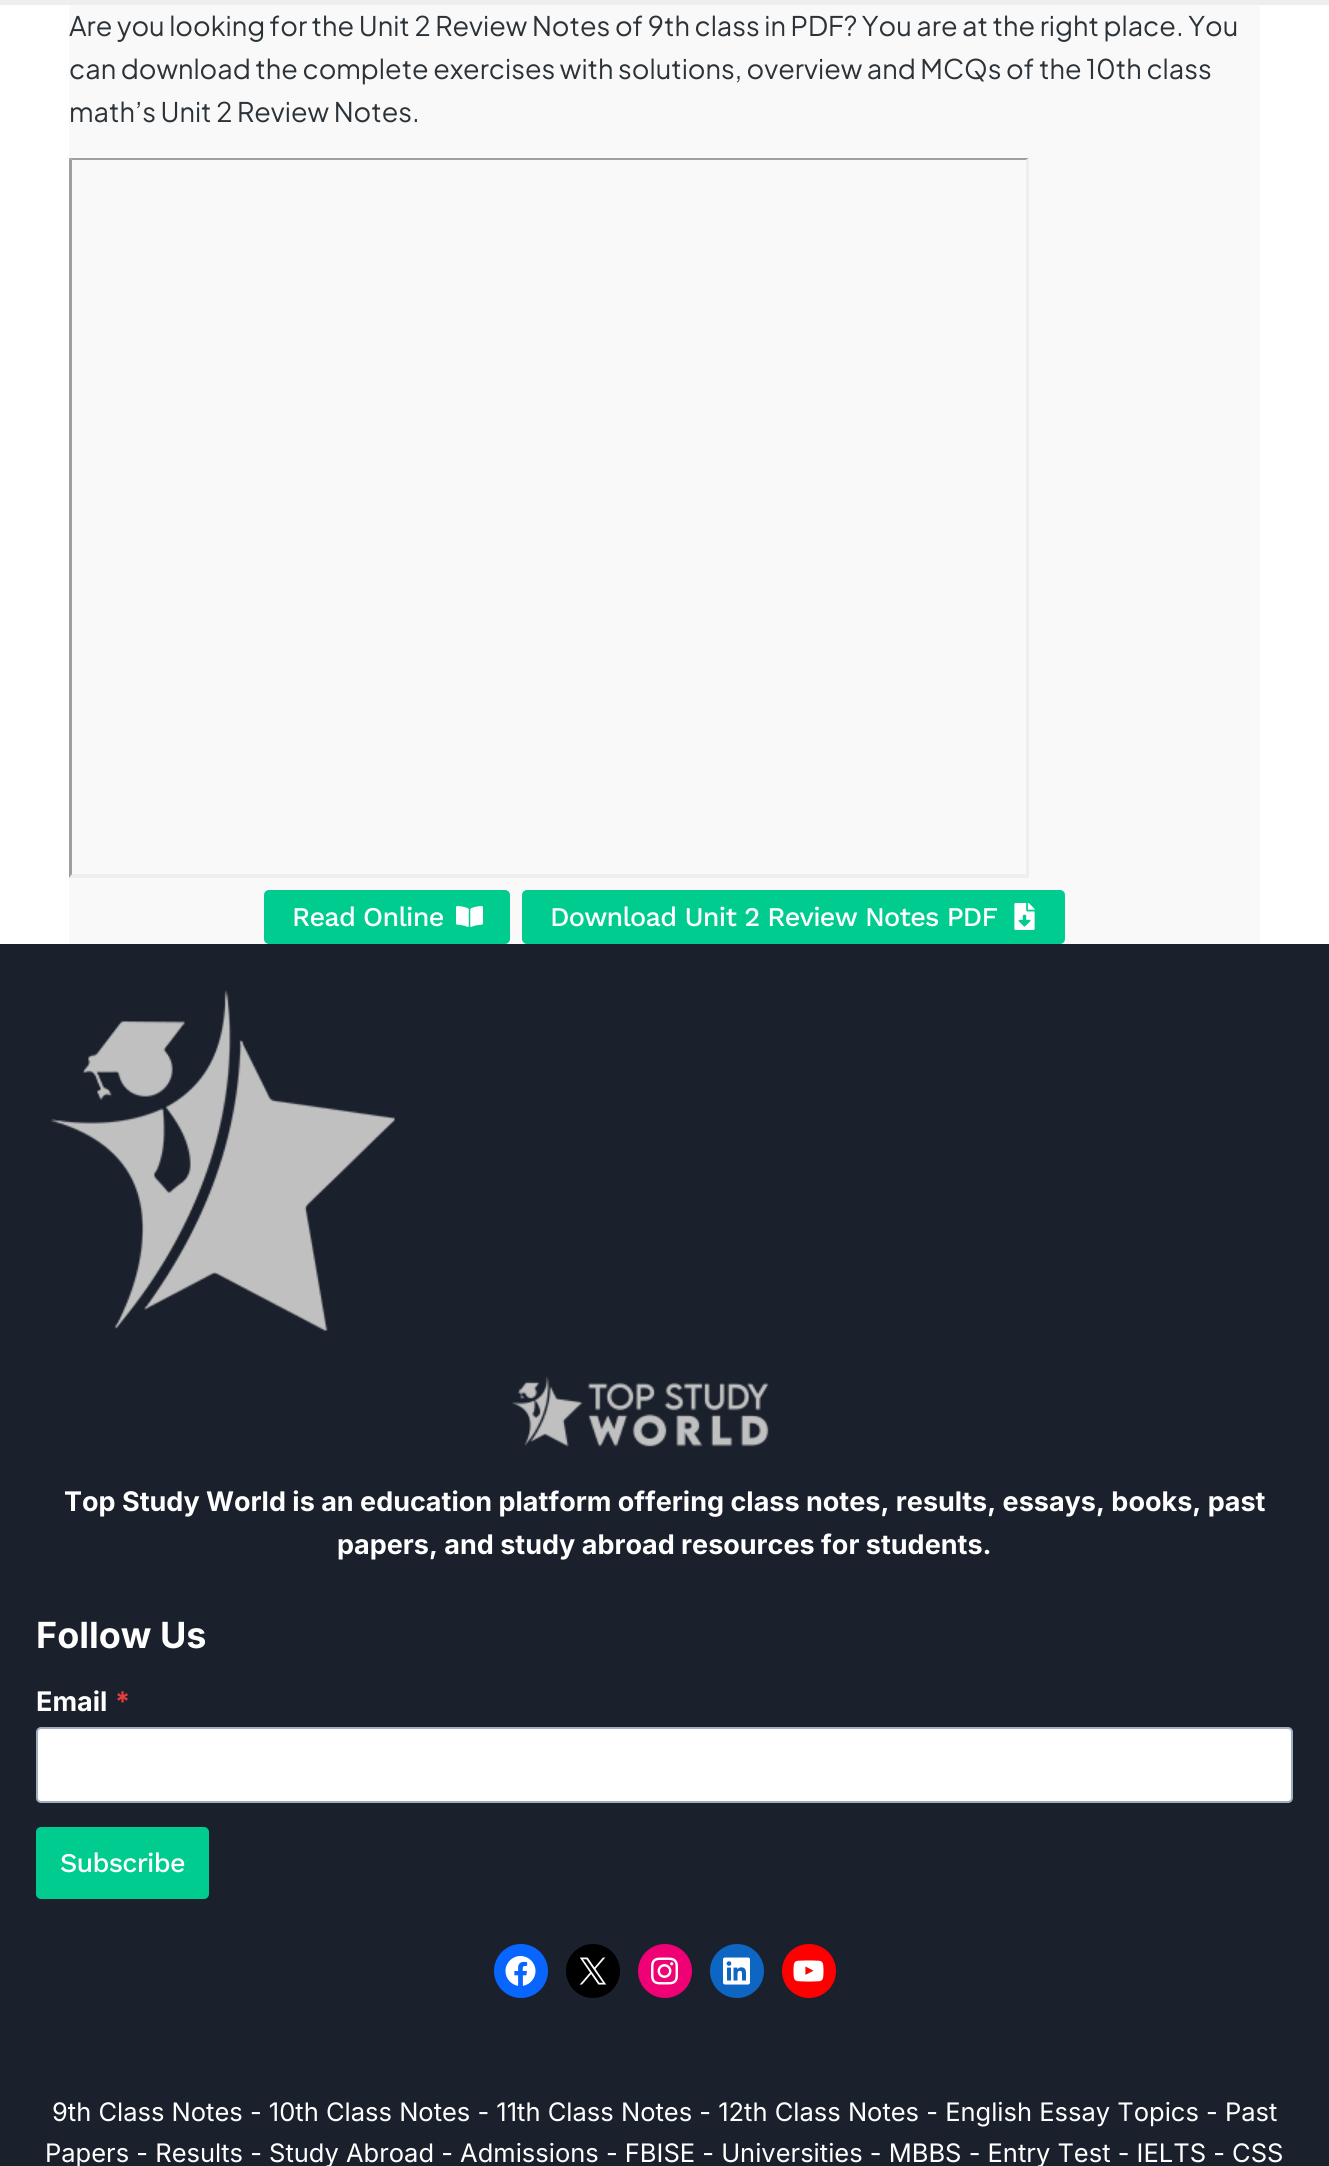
#include <cairo.h>
#include <math.h>
#include <stddef.h>


static void set_color(cairo_t *cr, unsigned color) {
    cairo_set_source_rgb(cr, (color >> 16) / 255.0, (color >> 8 & 255) / 255.0, (color & 255) / 255.0);
}

static void draw_text(cairo_t *cr, double x, double y, const char *s, const char *family, double size, int italic, int bold, unsigned color) {
    cairo_select_font_face(cr, family, italic ? CAIRO_FONT_SLANT_ITALIC : CAIRO_FONT_SLANT_NORMAL,
        bold ? CAIRO_FONT_WEIGHT_BOLD : CAIRO_FONT_WEIGHT_NORMAL);
    cairo_set_font_size(cr, size);
    set_color(cr, color);
    cairo_move_to(cr, x, y);
    cairo_show_text(cr, s);
}

static void draw_spaced(cairo_t *cr, double x, double y, const char *s, double letter, double word) {
    cairo_move_to(cr, x, y);
    while (*s) {
        char ch[5] = {0};
        int n = 0;
        do ch[n++] = *s++; while ((*s & 0xC0) == 0x80);
        cairo_show_text(cr, ch);
        cairo_rel_move_to(cr, letter + word * (*ch == ' '), 0);
    }
}

static void fill_rect(cairo_t *cr, double x, double y, double w, double h, unsigned color) {
    set_color(cr, color);
    cairo_rectangle(cr, x, y, w, h);
    cairo_fill(cr);
}

static void rounded_rect(cairo_t *cr, double x, double y, double w, double h, double r) {
    cairo_new_sub_path(cr);
    cairo_arc(cr, x + w - r, y + h - r, r, 0, M_PI / 2);
    cairo_arc(cr, x + r, y + h - r, r, M_PI / 2, M_PI);
    cairo_arc(cr, x + r, y + r, r, M_PI, 1.5 * M_PI);
    cairo_arc(cr, x + w - r, y + r, r, 1.5 * M_PI, 2 * M_PI);
    cairo_close_path(cr);
}

static void draw_image(cairo_t *cr, const char *path, double x, double y, double w, double h) {
    cairo_surface_t *image = cairo_image_surface_create_from_png(path);
    cairo_save(cr);
    cairo_set_source_surface(cr, image, x, y);
    cairo_rectangle(cr, x, y, w, h);
    cairo_fill(cr);
    cairo_restore(cr);
    cairo_surface_destroy(image);
}

int main(void) {
    cairo_surface_t *surface = cairo_image_surface_create(CAIRO_FORMAT_RGB24, 1329, 2166);
    cairo_t *cr = cairo_create(surface);
    cairo_font_options_t *options = cairo_font_options_create();
    cairo_font_options_set_hint_metrics(options, CAIRO_HINT_METRICS_OFF);
    cairo_font_options_set_hint_style(options, CAIRO_HINT_STYLE_NONE);
    cairo_set_font_options(cr, options);
    cairo_set_miter_limit(cr, 4);
    set_color(cr, 0xFFFFFF);
    cairo_paint(cr);
    fill_rect(cr, 0, 0, 1329, 5, 0xEEEEEE);
    fill_rect(cr, 69, 5, 1191, 939, 0xF9F9F9);
    draw_text(cr, 69, 36, "Are you looking for the Unit 2 Review Notes of 9th class in PDF? You are at the right place. You", "Plus Jakarta Sans", 27, 0, 0, 0x2C3338);
    draw_text(cr, 69, 79, "can download the complete exercises with solutions, overview and MCQs of the 10th class", "Plus Jakarta Sans", 27, 0, 0, 0x2C3338);
    draw_text(cr, 69, 122, "math’s Unit 2 Review Notes.", "Plus Jakarta Sans", 27, 0, 0, 0x2C3338);
    set_color(cr, 0x9F9F9F);
    cairo_new_path(cr);
    cairo_move_to(cr, 69, 158);
    cairo_line_to(cr, 1029, 158);
    cairo_line_to(cr, 1026, 160);
    cairo_line_to(cr, 72, 160);
    cairo_close_path(cr);
    cairo_fill(cr);
    set_color(cr, 0xEEEEEE);
    cairo_new_path(cr);
    cairo_move_to(cr, 1029, 158);
    cairo_line_to(cr, 1029, 878);
    cairo_line_to(cr, 1026, 874);
    cairo_line_to(cr, 1026, 160);
    cairo_close_path(cr);
    cairo_fill(cr);
    cairo_new_path(cr);
    cairo_move_to(cr, 1029, 878);
    cairo_line_to(cr, 69, 878);
    cairo_line_to(cr, 72, 874);
    cairo_line_to(cr, 1026, 874);
    cairo_close_path(cr);
    cairo_fill(cr);
    set_color(cr, 0x9F9F9F);
    cairo_new_path(cr);
    cairo_move_to(cr, 69, 878);
    cairo_line_to(cr, 69, 158);
    cairo_line_to(cr, 72, 160);
    cairo_line_to(cr, 72, 874);
    cairo_close_path(cr);
    cairo_fill(cr);
    set_color(cr, 0x00CC90);
    rounded_rect(cr, 264, 890, 246, 54, 5);
    cairo_fill(cr);
    cairo_select_font_face(cr, "Work Sans Medium", CAIRO_FONT_SLANT_NORMAL, CAIRO_FONT_WEIGHT_NORMAL);
    set_color(cr, 0xFFFFFF);
    draw_spaced(cr, 292, 926, "Read Online", -0.75, 0);
    draw_image(cr, "assets/img1.png", 456, 906, 27, 21);
    set_color(cr, 0x00CC90);
    rounded_rect(cr, 522, 890, 543, 54, 5);
    cairo_fill(cr);
    set_color(cr, 0xFFFFFF);
    draw_spaced(cr, 550, 926, "Download Unit 2 Review Notes PDF", -0.75, 0);
    draw_image(cr, "assets/img2.png", 1014, 903, 21, 27);
    fill_rect(cr, 0, 944, 1329, 1222, 0x1A202C);
    draw_image(cr, "assets/img3.png", 51, 990, 344, 341);
    draw_image(cr, "assets/img4.png", 511, 1376, 258, 71);
    draw_text(cr, 64, 1511, "Top Study World is an education platform offering class notes, results, essays, books, past", "Inter", 27, 0, 1, 0xFFFFFF);
    draw_text(cr, 337, 1554, "papers, and study abroad resources for students.", "Inter", 27, 0, 1, 0xFFFFFF);
    draw_text(cr, 36, 1648, "Follow Us", "Inter", 36, 0, 1, 0xFFFFFF);
    draw_text(cr, 36, 1711, "Email", "Inter", 27, 0, 1, 0xFFFFFF);
    draw_text(cr, 115, 1711, "*", "Inter", 27, 0, 1, 0xE53E3E);
    set_color(cr, 0xFFFFFF);
    rounded_rect(cr, 37, 1728, 1255, 74, 4);
    cairo_fill_preserve(cr);
    set_color(cr, 0xA0AEC0);
    cairo_stroke(cr);
    set_color(cr, 0x00CC90);
    rounded_rect(cr, 36, 1827, 173, 72, 5);
    cairo_fill(cr);
    cairo_select_font_face(cr, "Work Sans Medium", CAIRO_FONT_SLANT_NORMAL, CAIRO_FONT_WEIGHT_NORMAL);
    set_color(cr, 0xFFFFFF);
    draw_spaced(cr, 60, 1872, "Subscribe", -0.75, 0);
    set_color(cr, 0x0866FF);
    cairo_new_path(cr);
    cairo_arc(cr, 521, 1971, 27, 0, 2 * M_PI);
    cairo_fill(cr);
    draw_image(cr, "assets/img5.png", 505, 1956, 31, 30);
    set_color(cr, 0x000000);
    cairo_arc(cr, 593, 1971, 27, 0, 2 * M_PI);
    cairo_fill(cr);
    draw_image(cr, "assets/img6.png", 579, 1957, 28, 28);
    set_color(cr, 0xF00075);
    cairo_arc(cr, 665, 1971, 27, 0, 2 * M_PI);
    cairo_fill(cr);
    draw_image(cr, "assets/img7.png", 651, 1957, 27, 28);
    set_color(cr, 0x0D66C2);
    cairo_arc(cr, 737, 1971, 27, 0, 2 * M_PI);
    cairo_fill(cr);
    draw_image(cr, "assets/img8.png", 723, 1957, 27, 28);
    set_color(cr, 0xFF0000);
    cairo_arc(cr, 809, 1971, 27, 0, 2 * M_PI);
    cairo_fill(cr);
    draw_image(cr, "assets/img9.png", 793, 1960, 31, 22);
    draw_text(cr, 52, 2121, "9th Class Notes - 10th Class Notes - 11th Class Notes - 12th Class Notes - English Essay Topics - Past", "Inter", 25.5, 0, 0, 0xFFFFFF);
    draw_text(cr, 45, 2162, "Papers - Results - Study Abroad - Admissions - FBISE - Universities - MBBS - Entry Test - IELTS - CSS", "Inter", 25.5, 0, 0, 0xFFFFFF);
    cairo_surface_write_to_png(surface, "output.png");
    cairo_font_options_destroy(options);
    cairo_destroy(cr);
    cairo_surface_destroy(surface);
    return 0;
}
